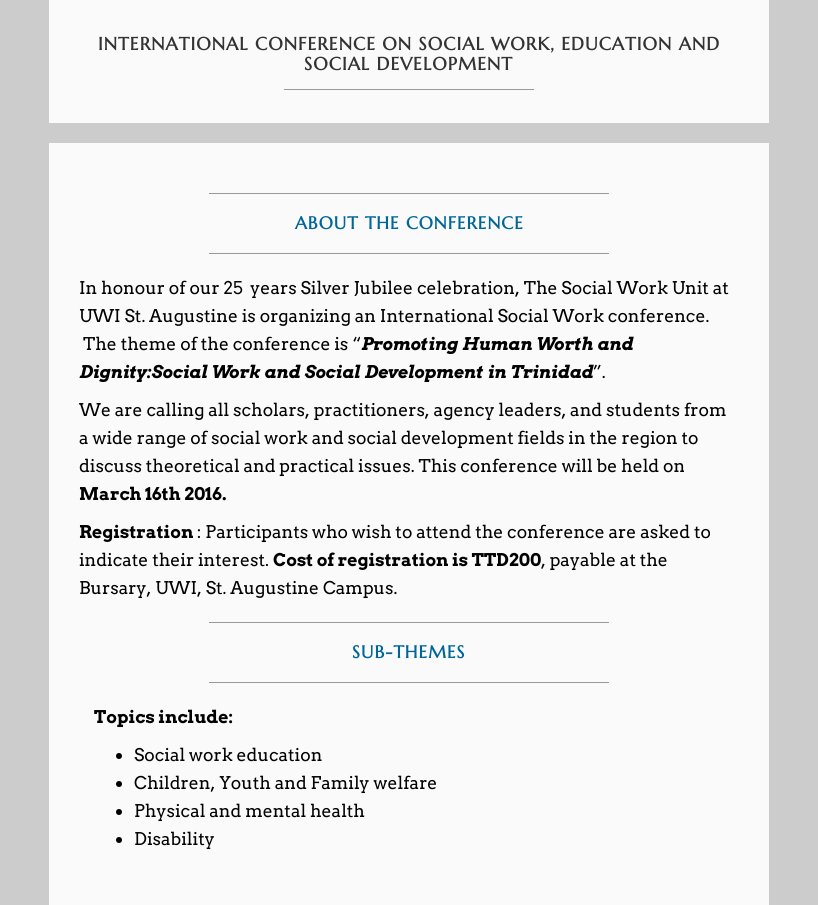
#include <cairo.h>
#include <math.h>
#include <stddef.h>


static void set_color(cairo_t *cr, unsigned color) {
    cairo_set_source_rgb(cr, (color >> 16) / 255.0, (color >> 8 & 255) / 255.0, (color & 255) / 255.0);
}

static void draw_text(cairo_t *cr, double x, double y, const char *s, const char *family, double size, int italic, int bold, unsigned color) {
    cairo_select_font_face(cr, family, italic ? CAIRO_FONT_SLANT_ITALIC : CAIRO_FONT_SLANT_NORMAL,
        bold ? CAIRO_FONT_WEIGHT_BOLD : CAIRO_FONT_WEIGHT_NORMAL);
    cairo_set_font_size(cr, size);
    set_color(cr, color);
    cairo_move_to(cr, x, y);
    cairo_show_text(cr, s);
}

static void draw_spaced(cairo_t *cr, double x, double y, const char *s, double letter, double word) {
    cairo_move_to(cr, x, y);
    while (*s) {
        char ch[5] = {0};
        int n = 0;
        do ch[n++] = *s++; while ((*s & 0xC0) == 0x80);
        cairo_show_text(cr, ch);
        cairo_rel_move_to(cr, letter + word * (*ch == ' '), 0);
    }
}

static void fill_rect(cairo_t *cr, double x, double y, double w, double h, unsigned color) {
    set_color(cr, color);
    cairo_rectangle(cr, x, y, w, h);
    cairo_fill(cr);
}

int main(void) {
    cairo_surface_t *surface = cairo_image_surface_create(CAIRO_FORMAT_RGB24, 818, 905);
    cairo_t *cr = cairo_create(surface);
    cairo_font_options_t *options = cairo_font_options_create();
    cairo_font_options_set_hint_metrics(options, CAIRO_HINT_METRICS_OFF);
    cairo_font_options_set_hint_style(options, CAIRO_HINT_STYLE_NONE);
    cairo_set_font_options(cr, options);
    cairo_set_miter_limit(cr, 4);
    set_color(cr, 0xCCCCCC);
    cairo_paint(cr);
    fill_rect(cr, 49, 0, 720, 123, 0xFAFAFA);
    cairo_select_font_face(cr, "Marcellus", CAIRO_FONT_SLANT_NORMAL, CAIRO_FONT_WEIGHT_BOLD);
    cairo_set_font_size(cr, 18);
    set_color(cr, 0x333333);
    draw_spaced(cr, 98, 50, "INTERNATIONAL CONFERENCE ON SOCIAL WORK, EDUCATION AND", 1, 0);
    draw_spaced(cr, 304, 70, "SOCIAL DEVELOPMENT", 1, 0);
    fill_rect(cr, 284, 89, 250, 1, 0x999999);
    fill_rect(cr, 49, 143, 720, 762, 0xFAFAFA);
    fill_rect(cr, 209, 193, 400, 1, 0x999999);
    cairo_set_font_size(cr, 17.5);
    set_color(cr, 0x006699);
    draw_spaced(cr, 295, 229, "ABOUT THE CONFERENCE", 1, 0);
    fill_rect(cr, 209, 253, 400, 1, 0x999999);
    draw_text(cr, 79, 294, "In honour of our 25  years Silver Jubilee celebration, The Social Work Unit at", "Arvo", 17.5, 0, 0, 0x000000);
    draw_text(cr, 79, 322, "UWI St. Augustine is organizing an International Social Work conference.", "Arvo", 17.5, 0, 0, 0x000000);
    draw_text(cr, 83, 350, "The theme of the conference is “", "Arvo", 17.5, 0, 0, 0x000000);
    draw_text(cr, 361, 350, "Promoting Human Worth and", "Arvo", 17.5, 1, 1, 0x000000);
    draw_text(cr, 79, 378, "Dignity:Social Work and Social Development in Trinidad", "Arvo", 17.5, 1, 1, 0x000000);
    draw_text(cr, 593, 378, "”.", "Arvo", 17.5, 0, 0, 0x000000);
    draw_text(cr, 79, 416, "We are calling all scholars, practitioners, agency leaders, and students from", "Arvo", 17.5, 0, 0, 0x000000);
    draw_text(cr, 79, 444, "a wide range of social work and social development fields in the region to", "Arvo", 17.5, 0, 0, 0x000000);
    draw_text(cr, 79, 472, "discuss theoretical and practical issues. This conference will be held on", "Arvo", 17.5, 0, 0, 0x000000);
    draw_text(cr, 79, 500, "March 16th 2016.", "Arvo", 17.5, 0, 1, 0x000000);
    draw_text(cr, 79, 538, "Registration", "Arvo", 17.5, 0, 1, 0x000000);
    draw_text(cr, 197, 538, ": Participants who wish to attend the conference are asked to", "Arvo", 17.5, 0, 0, 0x000000);
    draw_text(cr, 79, 566, "indicate their interest.", "Arvo", 17.5, 0, 0, 0x000000);
    draw_text(cr, 273, 566, "Cost of registration is TTD200", "Arvo", 17.5, 0, 1, 0x000000);
    draw_text(cr, 541, 566, ", payable at the", "Arvo", 17.5, 0, 0, 0x000000);
    draw_text(cr, 79, 594, "Bursary, UWI, St. Augustine Campus.", "Arvo", 17.5, 0, 0, 0x000000);
    fill_rect(cr, 209, 622, 400, 1, 0x999999);
    cairo_select_font_face(cr, "Marcellus", CAIRO_FONT_SLANT_NORMAL, CAIRO_FONT_WEIGHT_BOLD);
    set_color(cr, 0x006699);
    draw_spaced(cr, 352, 658, "SUB-THEMES", 1, 0);
    fill_rect(cr, 209, 682, 400, 1, 0x999999);
    draw_text(cr, 94, 723, "Topics include:", "Arvo", 17.5, 0, 1, 0x000000);
    cairo_new_path(cr);
    cairo_arc(cr, 119, 756, 3, 0, 2 * M_PI);
    cairo_fill(cr);
    draw_text(cr, 134, 761, "Social work education", "Arvo", 17.5, 0, 0, 0x000000);
    cairo_new_path(cr);
    cairo_arc(cr, 119, 784, 3, 0, 2 * M_PI);
    cairo_fill(cr);
    draw_text(cr, 134, 789, "Children, Youth and Family welfare", "Arvo", 17.5, 0, 0, 0x000000);
    cairo_new_path(cr);
    cairo_arc(cr, 119, 812, 3, 0, 2 * M_PI);
    cairo_fill(cr);
    draw_text(cr, 134, 817, "Physical and mental health", "Arvo", 17.5, 0, 0, 0x000000);
    cairo_new_path(cr);
    cairo_arc(cr, 119, 840, 3, 0, 2 * M_PI);
    cairo_fill(cr);
    draw_text(cr, 134, 845, "Disability", "Arvo", 17.5, 0, 0, 0x000000);
    cairo_surface_write_to_png(surface, "output.png");
    cairo_font_options_destroy(options);
    cairo_destroy(cr);
    cairo_surface_destroy(surface);
    return 0;
}
